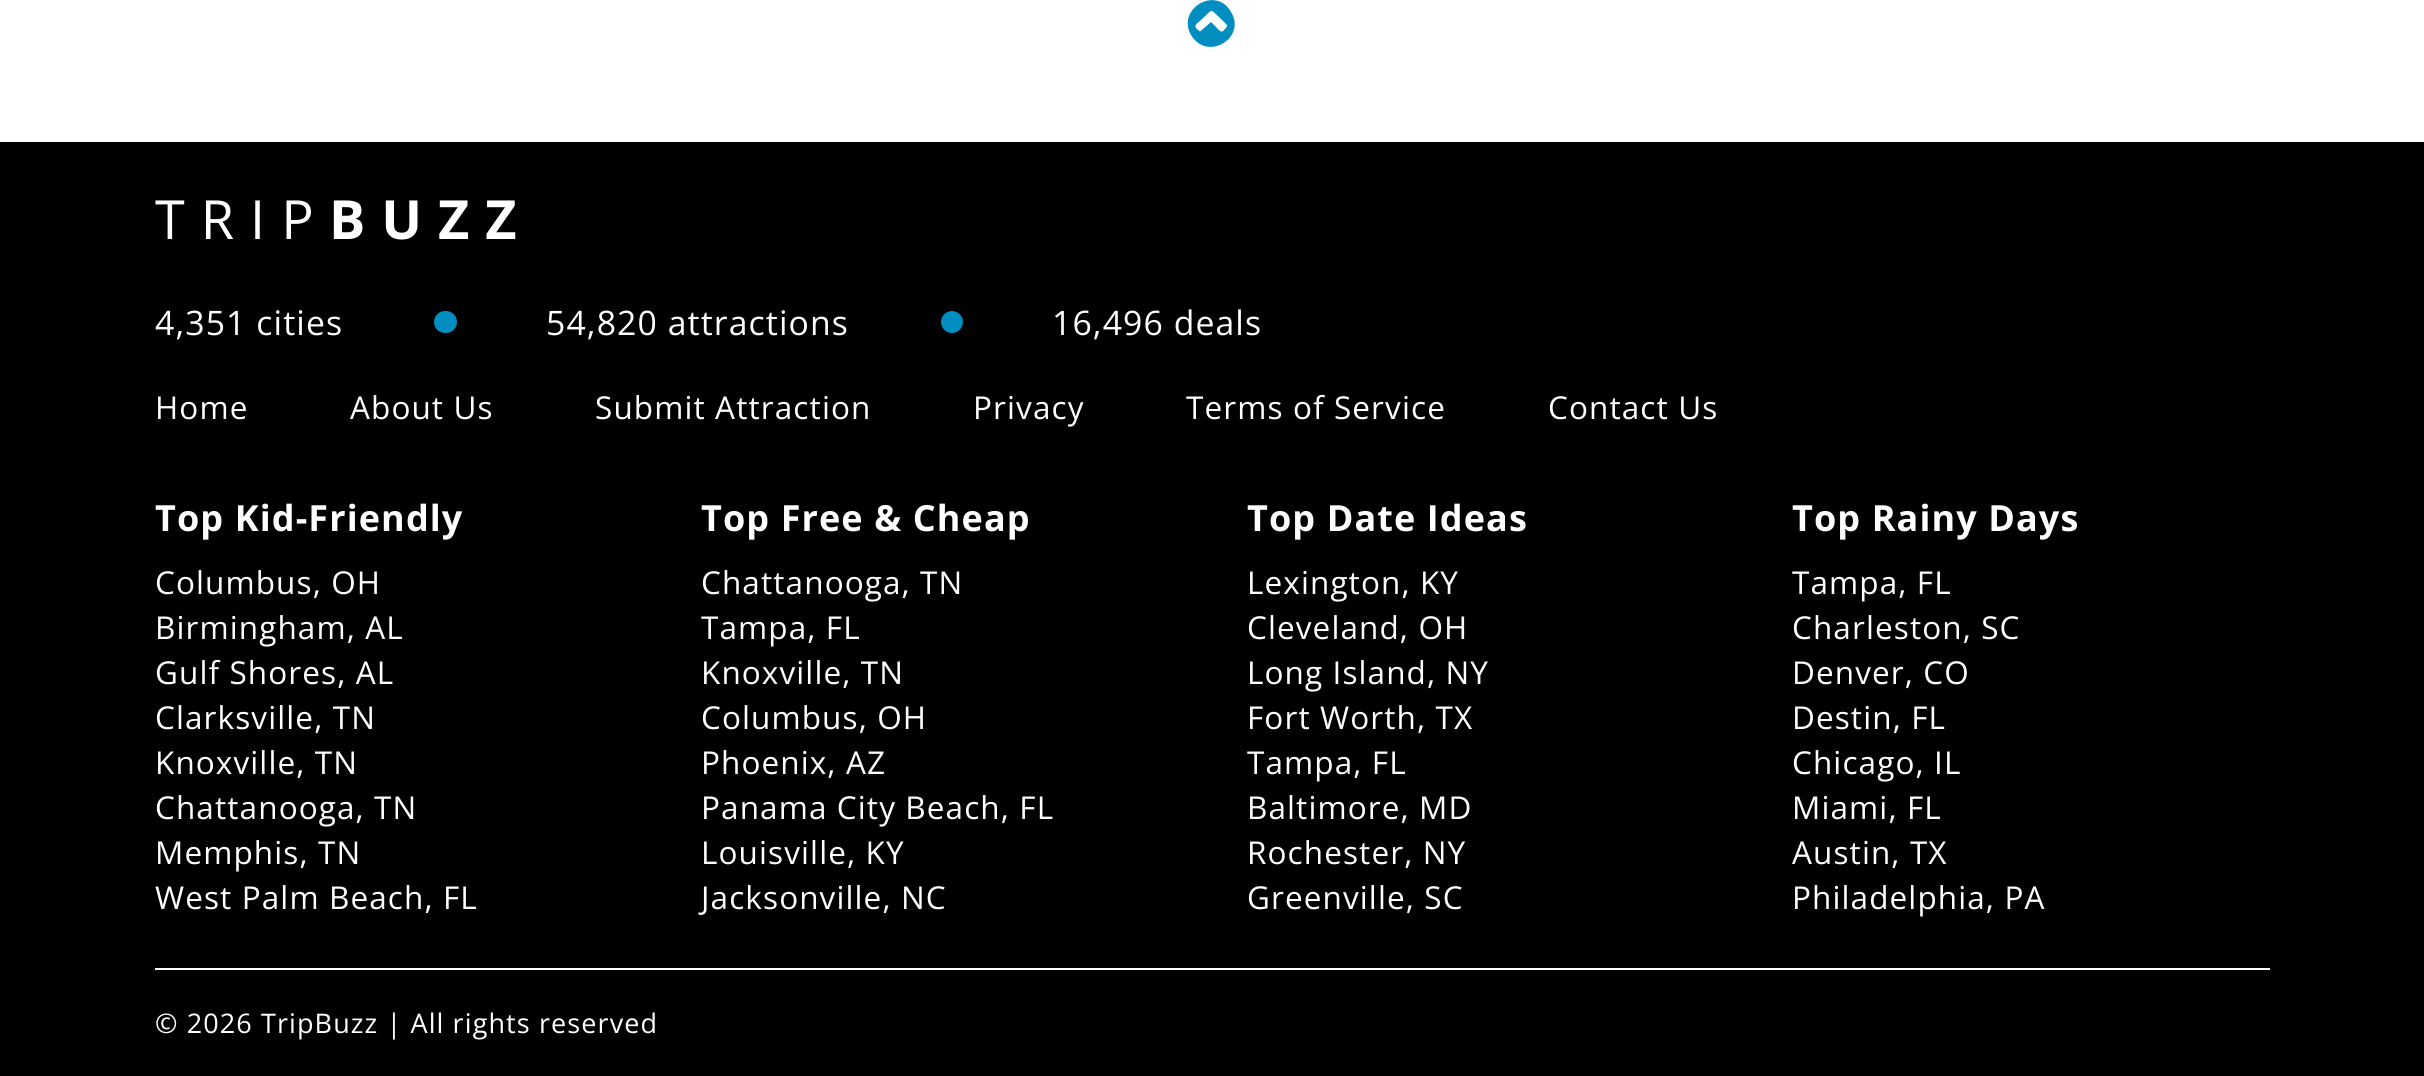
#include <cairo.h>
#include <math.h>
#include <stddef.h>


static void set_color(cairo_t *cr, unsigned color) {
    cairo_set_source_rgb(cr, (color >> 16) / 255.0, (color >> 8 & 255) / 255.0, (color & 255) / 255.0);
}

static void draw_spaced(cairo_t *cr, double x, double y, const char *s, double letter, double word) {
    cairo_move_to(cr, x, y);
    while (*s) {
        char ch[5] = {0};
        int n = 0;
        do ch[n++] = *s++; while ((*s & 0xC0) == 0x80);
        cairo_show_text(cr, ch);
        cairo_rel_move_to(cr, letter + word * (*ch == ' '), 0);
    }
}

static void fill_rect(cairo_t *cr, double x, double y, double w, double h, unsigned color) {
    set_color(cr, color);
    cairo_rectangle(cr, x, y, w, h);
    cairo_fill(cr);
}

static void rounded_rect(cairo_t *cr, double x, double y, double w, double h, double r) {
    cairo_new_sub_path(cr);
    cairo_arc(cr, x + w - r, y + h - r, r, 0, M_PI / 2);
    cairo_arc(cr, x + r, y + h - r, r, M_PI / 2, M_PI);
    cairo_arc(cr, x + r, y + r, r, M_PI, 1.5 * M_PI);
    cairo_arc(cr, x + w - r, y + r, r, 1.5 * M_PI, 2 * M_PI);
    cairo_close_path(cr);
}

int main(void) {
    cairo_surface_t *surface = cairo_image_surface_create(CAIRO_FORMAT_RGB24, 2424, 1076);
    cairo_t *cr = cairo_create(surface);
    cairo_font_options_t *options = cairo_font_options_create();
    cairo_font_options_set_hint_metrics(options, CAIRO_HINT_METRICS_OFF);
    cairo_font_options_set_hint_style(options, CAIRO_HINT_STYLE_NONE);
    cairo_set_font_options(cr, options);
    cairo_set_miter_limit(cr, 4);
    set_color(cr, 0xFFFFFF);
    cairo_paint(cr);
    set_color(cr, 0x008EC0);
    cairo_new_path(cr);
    cairo_move_to(cr, 1223, 31);
    cairo_curve_to(cr, 1229, 25, 1228, 26, 1222, 20);
    cairo_curve_to(cr, 1209, 8, 1214, 8, 1201, 20);
    cairo_curve_to(cr, 1197, 24, 1193, 25, 1197, 29);
    cairo_curve_to(cr, 1200, 32, 1200, 32, 1203, 29);
    cairo_line_to(cr, 1211, 22);
    cairo_line_to(cr, 1217, 28);
    cairo_curve_to(cr, 1218, 29, 1221, 33, 1223, 31);
    cairo_close_path(cr);
    cairo_move_to(cr, 1231, 12);
    cairo_curve_to(cr, 1247, 38, 1207, 62, 1191, 35);
    cairo_curve_to(cr, 1176, 9, 1216, -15, 1231, 12);
    cairo_close_path(cr);
    cairo_fill(cr);
    fill_rect(cr, 0, 142, 2424, 934, 0x000000);
    cairo_select_font_face(cr, "Open Sans", CAIRO_FONT_SLANT_NORMAL, CAIRO_FONT_WEIGHT_NORMAL);
    cairo_set_font_size(cr, 54);
    set_color(cr, 0xFFFFFF);
    draw_spaced(cr, 155, 239, "TRIP", 16, 0);
    cairo_select_font_face(cr, "Open Sans", CAIRO_FONT_SLANT_NORMAL, CAIRO_FONT_WEIGHT_BOLD);
    draw_spaced(cr, 329, 239, "BUZZ", 16, 0);
    cairo_select_font_face(cr, "Open Sans", CAIRO_FONT_SLANT_NORMAL, CAIRO_FONT_WEIGHT_NORMAL);
    cairo_set_font_size(cr, 33.75);
    draw_spaced(cr, 155, 335, "4,351 cities", 1.1, 0);
    set_color(cr, 0x008EC0);
    rounded_rect(cr, 434, 311, 23, 22, 11);
    cairo_fill(cr);
    set_color(cr, 0xFFFFFF);
    draw_spaced(cr, 546, 335, "54,820 attractions", 1.1, 0);
    set_color(cr, 0x008EC0);
    cairo_new_path(cr);
    cairo_arc(cr, 952, 322, 11, 0, 2 * M_PI);
    cairo_fill(cr);
    set_color(cr, 0xFFFFFF);
    draw_spaced(cr, 1052, 335, "16,496 deals", 1.1, 0);
    cairo_set_font_size(cr, 31.5);
    draw_spaced(cr, 155, 419, "Home", 1.1, 0);
    draw_spaced(cr, 350, 419, "About Us", 1.1, 0);
    draw_spaced(cr, 595, 419, "Submit Attraction", 1.1, 0);
    draw_spaced(cr, 973, 419, "Privacy", 1.1, 0);
    draw_spaced(cr, 1186, 419, "Terms of Service", 1.1, 0);
    draw_spaced(cr, 1548, 419, "Contact Us", 1.1, 0);
    cairo_select_font_face(cr, "Open Sans", CAIRO_FONT_SLANT_NORMAL, CAIRO_FONT_WEIGHT_BOLD);
    cairo_set_font_size(cr, 36);
    draw_spaced(cr, 155, 531, "Top Kid-Friendly", 1.1, 0);
    cairo_select_font_face(cr, "Open Sans", CAIRO_FONT_SLANT_NORMAL, CAIRO_FONT_WEIGHT_NORMAL);
    cairo_set_font_size(cr, 31.5);
    draw_spaced(cr, 155, 594, "Columbus, OH", 1.1, 0);
    draw_spaced(cr, 155, 639, "Birmingham, AL", 1.1, 0);
    draw_spaced(cr, 155, 684, "Gulf Shores, AL", 1.1, 0);
    draw_spaced(cr, 155, 729, "Clarksville, TN", 1.1, 0);
    draw_spaced(cr, 155, 774, "Knoxville, TN", 1.1, 0);
    draw_spaced(cr, 155, 819, "Chattanooga, TN", 1.1, 0);
    draw_spaced(cr, 155, 864, "Memphis, TN", 1.1, 0);
    draw_spaced(cr, 155, 909, "West Palm Beach, FL", 1.1, 0);
    cairo_select_font_face(cr, "Open Sans", CAIRO_FONT_SLANT_NORMAL, CAIRO_FONT_WEIGHT_BOLD);
    cairo_set_font_size(cr, 36);
    draw_spaced(cr, 701, 531, "Top Free & Cheap", 1.1, 0);
    cairo_select_font_face(cr, "Open Sans", CAIRO_FONT_SLANT_NORMAL, CAIRO_FONT_WEIGHT_NORMAL);
    cairo_set_font_size(cr, 31.5);
    draw_spaced(cr, 701, 594, "Chattanooga, TN", 1.1, 0);
    draw_spaced(cr, 701, 639, "Tampa, FL", 1.1, 0);
    draw_spaced(cr, 701, 684, "Knoxville, TN", 1.1, 0);
    draw_spaced(cr, 701, 729, "Columbus, OH", 1.1, 0);
    draw_spaced(cr, 701, 774, "Phoenix, AZ", 1.1, 0);
    draw_spaced(cr, 701, 819, "Panama City Beach, FL", 1.1, 0);
    draw_spaced(cr, 701, 864, "Louisville, KY", 1.1, 0);
    draw_spaced(cr, 701, 909, "Jacksonville, NC", 1.1, 0);
    cairo_select_font_face(cr, "Open Sans", CAIRO_FONT_SLANT_NORMAL, CAIRO_FONT_WEIGHT_BOLD);
    cairo_set_font_size(cr, 36);
    draw_spaced(cr, 1247, 531, "Top Date Ideas", 1.1, 0);
    cairo_select_font_face(cr, "Open Sans", CAIRO_FONT_SLANT_NORMAL, CAIRO_FONT_WEIGHT_NORMAL);
    cairo_set_font_size(cr, 31.5);
    draw_spaced(cr, 1247, 594, "Lexington, KY", 1.1, 0);
    draw_spaced(cr, 1247, 639, "Cleveland, OH", 1.1, 0);
    draw_spaced(cr, 1247, 684, "Long Island, NY", 1.1, 0);
    draw_spaced(cr, 1247, 729, "Fort Worth, TX", 1.1, 0);
    draw_spaced(cr, 1247, 774, "Tampa, FL", 1.1, 0);
    draw_spaced(cr, 1247, 819, "Baltimore, MD", 1.1, 0);
    draw_spaced(cr, 1247, 864, "Rochester, NY", 1.1, 0);
    draw_spaced(cr, 1247, 909, "Greenville, SC", 1.1, 0);
    cairo_select_font_face(cr, "Open Sans", CAIRO_FONT_SLANT_NORMAL, CAIRO_FONT_WEIGHT_BOLD);
    cairo_set_font_size(cr, 36);
    draw_spaced(cr, 1792, 531, "Top Rainy Days", 1.1, 0);
    cairo_select_font_face(cr, "Open Sans", CAIRO_FONT_SLANT_NORMAL, CAIRO_FONT_WEIGHT_NORMAL);
    cairo_set_font_size(cr, 31.5);
    draw_spaced(cr, 1792, 594, "Tampa, FL", 1.1, 0);
    draw_spaced(cr, 1792, 639, "Charleston, SC", 1.1, 0);
    draw_spaced(cr, 1792, 684, "Denver, CO", 1.1, 0);
    draw_spaced(cr, 1792, 729, "Destin, FL", 1.1, 0);
    draw_spaced(cr, 1792, 774, "Chicago, IL", 1.1, 0);
    draw_spaced(cr, 1792, 819, "Miami, FL", 1.1, 0);
    draw_spaced(cr, 1792, 864, "Austin, TX", 1.1, 0);
    draw_spaced(cr, 1792, 909, "Philadelphia, PA", 1.1, 0);
    fill_rect(cr, 155, 968, 2115, 2, 0xFFFFFF);
    cairo_set_font_size(cr, 27);
    draw_spaced(cr, 155, 1033, "© 2026 TripBuzz | All rights reserved", 1.1, 0);
    cairo_surface_write_to_png(surface, "output.png");
    cairo_font_options_destroy(options);
    cairo_destroy(cr);
    cairo_surface_destroy(surface);
    return 0;
}
